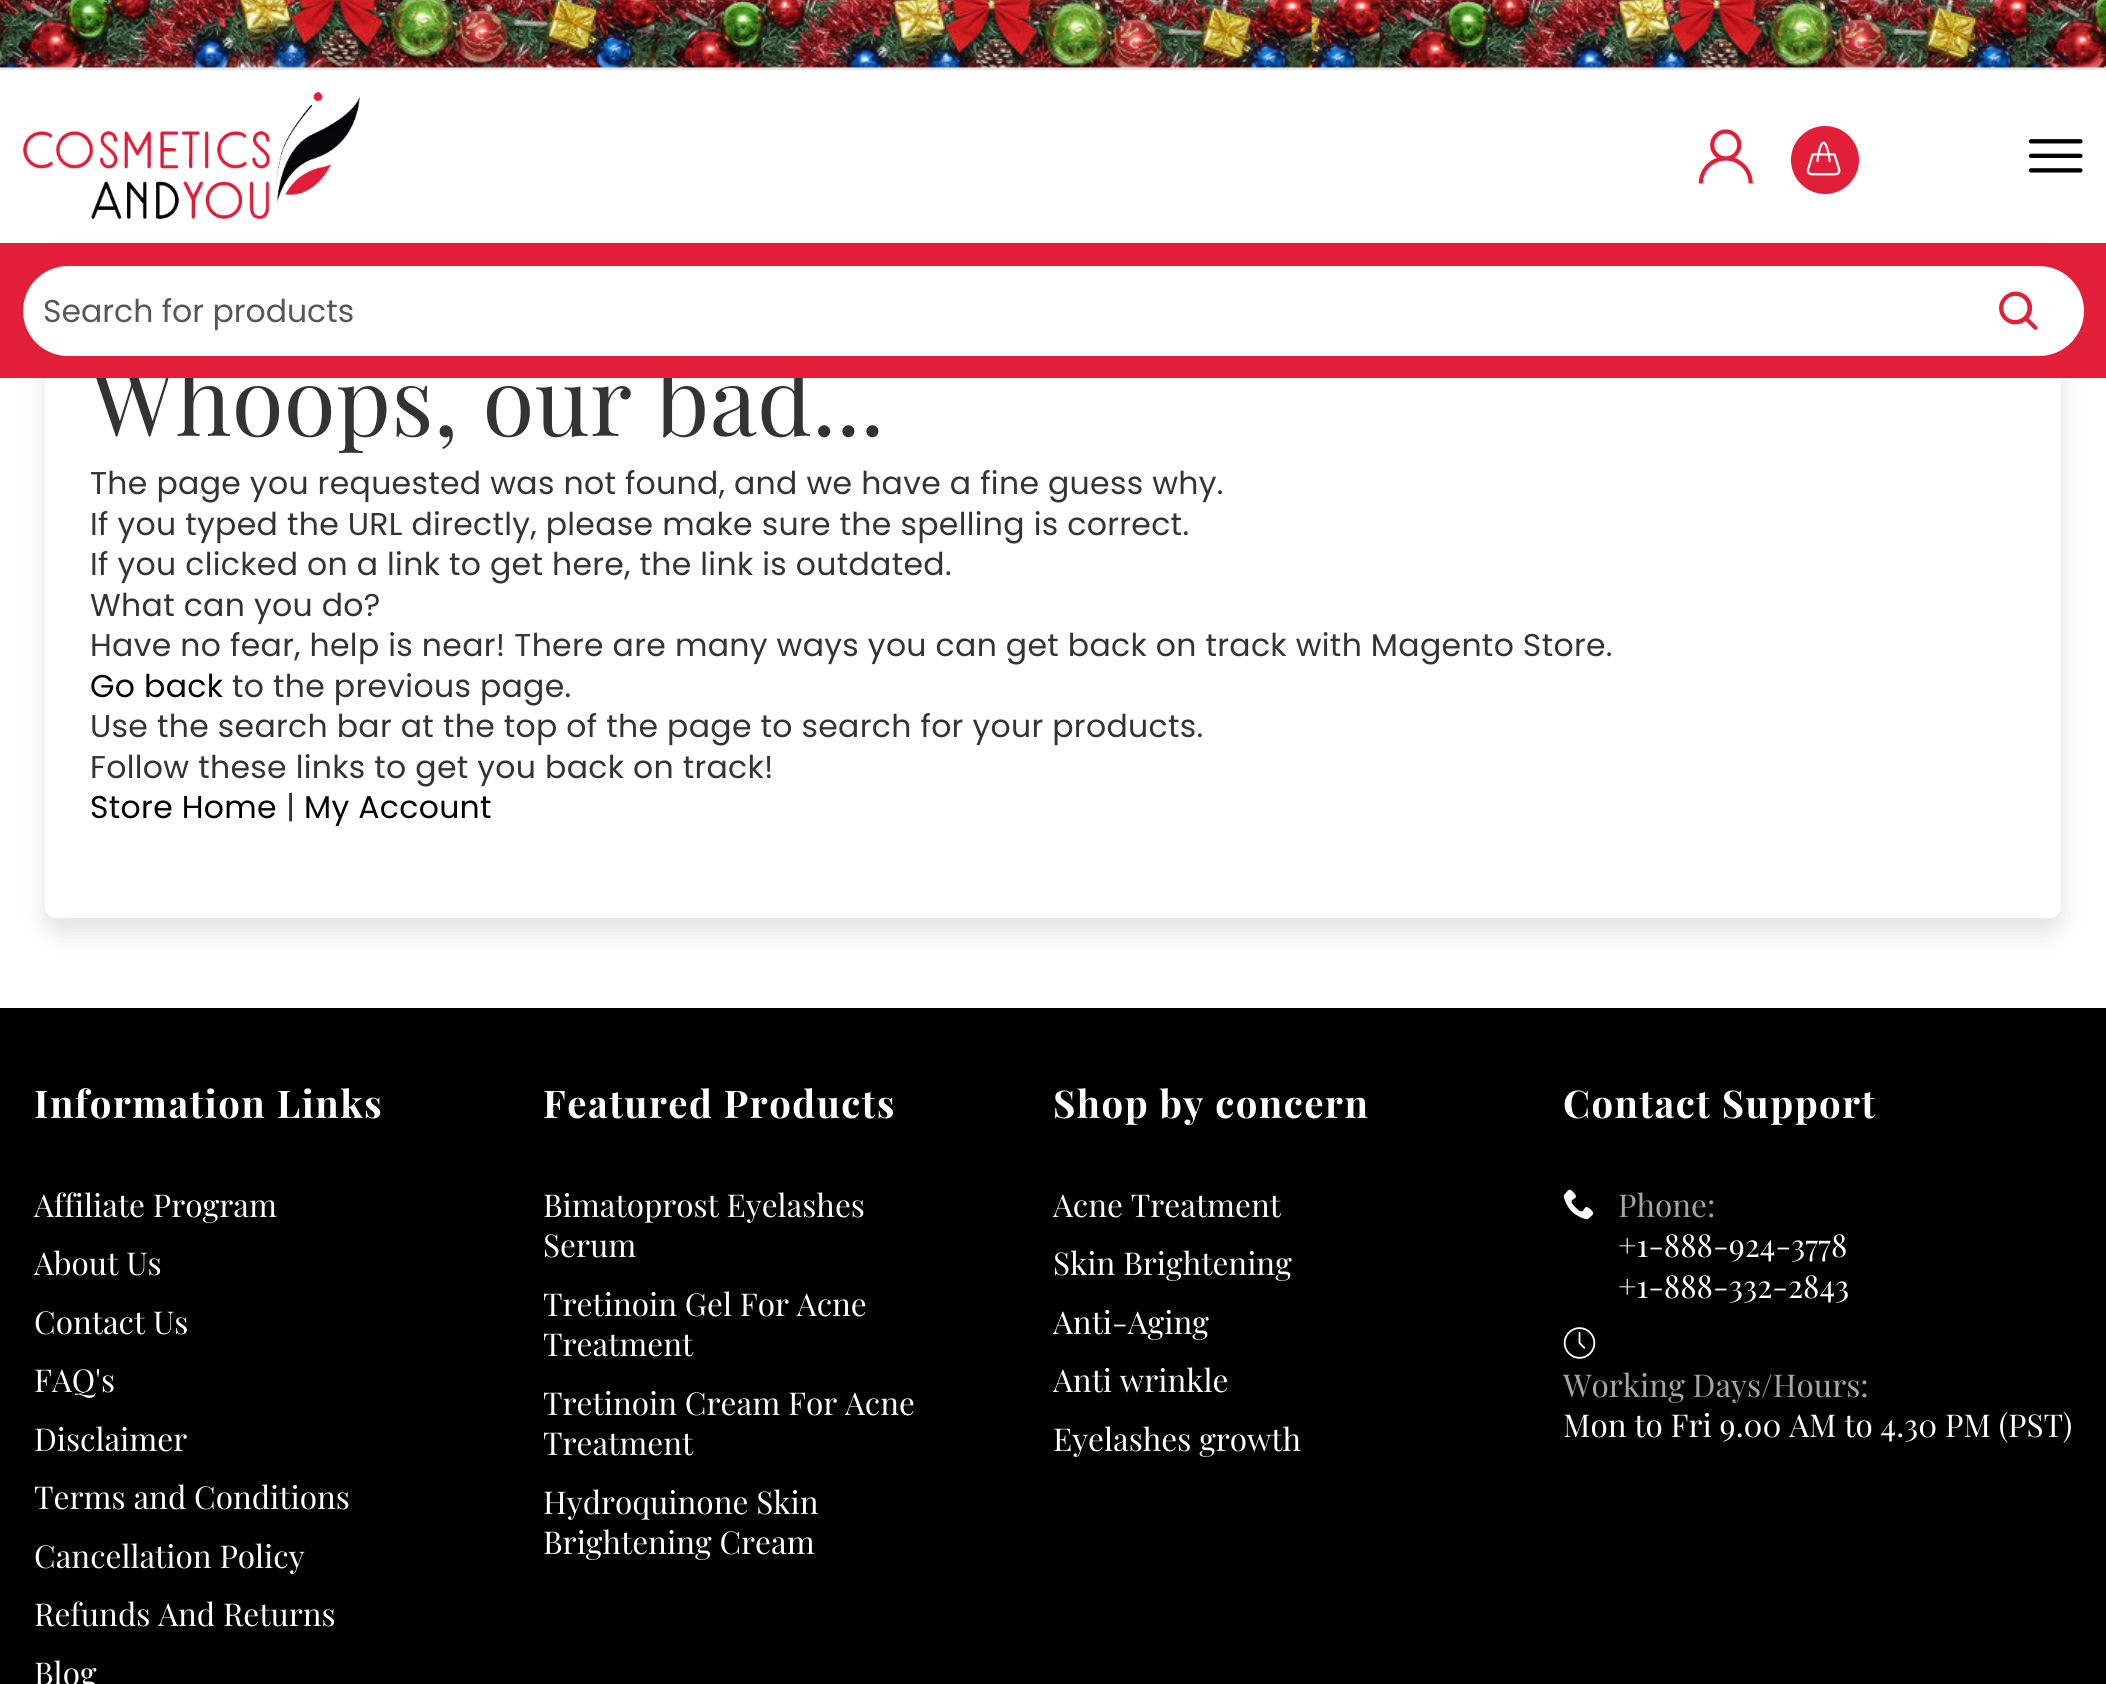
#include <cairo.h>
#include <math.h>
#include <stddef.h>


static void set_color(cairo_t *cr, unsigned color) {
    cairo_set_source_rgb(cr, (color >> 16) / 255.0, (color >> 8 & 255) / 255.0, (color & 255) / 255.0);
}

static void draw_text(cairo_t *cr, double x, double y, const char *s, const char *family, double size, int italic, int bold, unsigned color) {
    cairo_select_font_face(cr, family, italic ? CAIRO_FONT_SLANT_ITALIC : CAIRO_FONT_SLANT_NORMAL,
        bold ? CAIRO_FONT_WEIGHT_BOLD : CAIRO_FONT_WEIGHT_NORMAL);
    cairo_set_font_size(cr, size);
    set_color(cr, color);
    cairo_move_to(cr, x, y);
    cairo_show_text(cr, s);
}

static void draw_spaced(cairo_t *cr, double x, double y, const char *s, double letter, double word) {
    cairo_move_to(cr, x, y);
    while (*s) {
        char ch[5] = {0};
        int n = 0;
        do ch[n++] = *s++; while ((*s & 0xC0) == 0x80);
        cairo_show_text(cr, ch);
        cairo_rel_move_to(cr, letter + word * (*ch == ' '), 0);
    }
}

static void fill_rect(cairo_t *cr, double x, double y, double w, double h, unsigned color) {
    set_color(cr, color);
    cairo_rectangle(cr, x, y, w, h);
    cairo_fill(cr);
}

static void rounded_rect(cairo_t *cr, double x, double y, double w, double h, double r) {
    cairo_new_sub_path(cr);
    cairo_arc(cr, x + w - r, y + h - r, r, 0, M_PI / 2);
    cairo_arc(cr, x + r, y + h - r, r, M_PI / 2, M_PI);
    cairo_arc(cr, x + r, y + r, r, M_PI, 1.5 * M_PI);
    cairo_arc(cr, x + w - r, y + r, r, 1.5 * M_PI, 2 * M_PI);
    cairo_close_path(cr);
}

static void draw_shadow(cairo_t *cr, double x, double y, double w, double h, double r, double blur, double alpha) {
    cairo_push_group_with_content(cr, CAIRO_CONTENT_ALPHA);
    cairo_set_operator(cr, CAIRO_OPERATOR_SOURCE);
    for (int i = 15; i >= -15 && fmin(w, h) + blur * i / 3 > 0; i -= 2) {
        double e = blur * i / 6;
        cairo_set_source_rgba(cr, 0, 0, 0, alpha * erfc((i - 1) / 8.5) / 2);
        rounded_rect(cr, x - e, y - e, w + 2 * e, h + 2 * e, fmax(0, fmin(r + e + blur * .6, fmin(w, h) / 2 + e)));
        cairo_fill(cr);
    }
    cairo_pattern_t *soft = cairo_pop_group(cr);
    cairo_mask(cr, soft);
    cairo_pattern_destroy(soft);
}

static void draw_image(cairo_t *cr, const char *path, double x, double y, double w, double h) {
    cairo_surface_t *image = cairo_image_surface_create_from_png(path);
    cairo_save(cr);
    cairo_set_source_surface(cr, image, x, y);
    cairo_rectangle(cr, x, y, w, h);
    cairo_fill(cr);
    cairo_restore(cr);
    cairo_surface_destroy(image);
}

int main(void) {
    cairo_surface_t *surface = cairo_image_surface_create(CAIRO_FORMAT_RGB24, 2106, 1684);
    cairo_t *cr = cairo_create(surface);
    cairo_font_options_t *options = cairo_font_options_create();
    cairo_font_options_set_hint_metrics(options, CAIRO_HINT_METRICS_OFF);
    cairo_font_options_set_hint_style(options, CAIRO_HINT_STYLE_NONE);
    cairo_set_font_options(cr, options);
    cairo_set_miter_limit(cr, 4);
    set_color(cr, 0xFFFFFF);
    cairo_paint(cr);
    fill_rect(cr, 0, 68, 2106, 2, 0xE8E8E8);
    draw_image(cr, "assets/img1.png", 0, 0, 2106, 68);
    draw_image(cr, "assets/img2.png", 22, 92, 338, 127);
    draw_image(cr, "assets/img3.png", 1698, 129, 55, 55);
    set_color(cr, 0xE21E38);
    cairo_arc(cr, 1825, 160, 34, 0, 2 * M_PI);
    cairo_fill(cr);
    draw_image(cr, "assets/img4.png", 1806, 141, 35, 35);
    draw_image(cr, "assets/img5.png", 2028, 139, 55, 34);
    set_color(cr, 0xE4E4E4);
    draw_shadow(cr, 45, 259, 2016, 675, 18, 11, 1);
    set_color(cr, 0xFFFFFF);
    rounded_rect(cr, 45, 243, 2016, 675, 11);
    cairo_fill(cr);
    cairo_select_font_face(cr, "Playfair Display", CAIRO_FONT_SLANT_NORMAL, CAIRO_FONT_WEIGHT_NORMAL);
    cairo_set_font_size(cr, 94.5);
    set_color(cr, 0x333333);
    draw_spaced(cr, 90, 436, "Whoops, our bad...", 0.32, 0);
    fill_rect(cr, 0, 243, 2106, 135, 0xE21E38);
    set_color(cr, 0xFFFFFF);
    rounded_rect(cr, 23, 266, 2061, 90, 45);
    cairo_fill(cr);
    draw_text(cr, 43, 322, "Search for products", "Poppins", 31.5, 0, 0, 0x575757);
    draw_image(cr, "assets/img6.png", 1999, 291, 39, 39);
    set_color(cr, 0x333333);
    draw_spaced(cr, 90, 494, "The page you requested was not found, and we have a fine guess why.", 0.32, 0);
    draw_spaced(cr, 90, 535, "If you typed the URL directly, please make sure the spelling is correct.", 0.32, 0);
    draw_spaced(cr, 90, 575, "If you clicked on a link to get here, the link is outdated.", 0.32, 0);
    draw_spaced(cr, 90, 616, "What can you do?", 0.32, 0);
    draw_spaced(cr, 90, 656, "Have no fear, help is near! There are many ways you can get back on track with Magento Store.", 0.32, 0);
    set_color(cr, 0x000000);
    draw_spaced(cr, 90, 697, "Go back", 0.32, 0);
    set_color(cr, 0x333333);
    draw_spaced(cr, 232, 697, "to the previous page.", 0.32, 0);
    draw_spaced(cr, 90, 737, "Use the search bar at the top of the page to search for your products.", 0.32, 0);
    draw_spaced(cr, 90, 778, "Follow these links to get you back on track!", 0.32, 0);
    set_color(cr, 0x000000);
    draw_spaced(cr, 90, 818, "Store Home", 0.32, 0);
    set_color(cr, 0x333333);
    draw_spaced(cr, 286, 818, "|", 0.32, 0);
    set_color(cr, 0x000000);
    draw_spaced(cr, 304, 818, "My Account", 0.32, 0);
    fill_rect(cr, 0, 1008, 2106, 676, 0x000000);
    cairo_select_font_face(cr, "Playfair Display", CAIRO_FONT_SLANT_NORMAL, CAIRO_FONT_WEIGHT_BOLD);
    cairo_set_font_size(cr, 38.25);
    set_color(cr, 0xFFFFFF);
    draw_spaced(cr, 34, 1118, "Information Links", 1.5, 0);
    draw_text(cr, 34, 1217, "Affiliate Program", "Playfair Display", 31.5, 0, 0, 0xFFFFFF);
    draw_text(cr, 34, 1275, "About Us", "Playfair Display", 31.5, 0, 0, 0xFFFFFF);
    draw_text(cr, 34, 1334, "Contact Us", "Playfair Display", 31.5, 0, 0, 0xFFFFFF);
    draw_text(cr, 34, 1392, "FAQ's", "Playfair Display", 31.5, 0, 0, 0xFFFFFF);
    draw_text(cr, 34, 1451, "Disclaimer", "Playfair Display", 31.5, 0, 0, 0xFFFFFF);
    draw_text(cr, 34, 1509, "Terms and Conditions", "Playfair Display", 31.5, 0, 0, 0xFFFFFF);
    draw_text(cr, 34, 1568, "Cancellation Policy", "Playfair Display", 31.5, 0, 0, 0xFFFFFF);
    draw_text(cr, 34, 1626, "Refunds And Returns", "Playfair Display", 31.5, 0, 0, 0xFFFFFF);
    draw_text(cr, 34, 1685, "Blog", "Playfair Display", 31.5, 0, 0, 0xFFFFFF);
    cairo_select_font_face(cr, "Playfair Display", CAIRO_FONT_SLANT_NORMAL, CAIRO_FONT_WEIGHT_BOLD);
    cairo_set_font_size(cr, 38.25);
    draw_spaced(cr, 543, 1118, "Featured Products", 1.5, 0);
    draw_text(cr, 543, 1217, "Bimatoprost Eyelashes", "Playfair Display", 31.5, 0, 0, 0xFFFFFF);
    draw_text(cr, 543, 1257, "Serum", "Playfair Display", 31.5, 0, 0, 0xFFFFFF);
    draw_text(cr, 543, 1316, "Tretinoin Gel For Acne", "Playfair Display", 31.5, 0, 0, 0xFFFFFF);
    draw_text(cr, 543, 1356, "Treatment", "Playfair Display", 31.5, 0, 0, 0xFFFFFF);
    draw_text(cr, 543, 1415, "Tretinoin Cream For Acne", "Playfair Display", 31.5, 0, 0, 0xFFFFFF);
    draw_text(cr, 543, 1455, "Treatment", "Playfair Display", 31.5, 0, 0, 0xFFFFFF);
    draw_text(cr, 543, 1514, "Hydroquinone Skin", "Playfair Display", 31.5, 0, 0, 0xFFFFFF);
    draw_text(cr, 543, 1554, "Brightening Cream", "Playfair Display", 31.5, 0, 0, 0xFFFFFF);
    cairo_select_font_face(cr, "Playfair Display", CAIRO_FONT_SLANT_NORMAL, CAIRO_FONT_WEIGHT_BOLD);
    cairo_set_font_size(cr, 38.25);
    draw_spaced(cr, 1053, 1118, "Shop by concern", 1.5, 0);
    draw_text(cr, 1053, 1217, "Acne Treatment", "Playfair Display", 31.5, 0, 0, 0xFFFFFF);
    draw_text(cr, 1053, 1275, "Skin Brightening", "Playfair Display", 31.5, 0, 0, 0xFFFFFF);
    draw_text(cr, 1053, 1334, "Anti-Aging", "Playfair Display", 31.5, 0, 0, 0xFFFFFF);
    draw_text(cr, 1053, 1392, "Anti wrinkle", "Playfair Display", 31.5, 0, 0, 0xFFFFFF);
    draw_text(cr, 1053, 1451, "Eyelashes growth", "Playfair Display", 31.5, 0, 0, 0xFFFFFF);
    cairo_select_font_face(cr, "Playfair Display", CAIRO_FONT_SLANT_NORMAL, CAIRO_FONT_WEIGHT_BOLD);
    cairo_set_font_size(cr, 38.25);
    draw_spaced(cr, 1563, 1118, "Contact Support", 1.5, 0);
    draw_image(cr, "assets/img7.png", 1563, 1189, 31, 31);
    draw_text(cr, 1618, 1217, "Phone:", "Playfair Display", 31.5, 0, 0, 0xA6A6A6);
    draw_text(cr, 1618, 1257, "+1-888-924-3778", "Playfair Display", 31.5, 0, 0, 0xFFFFFF);
    draw_text(cr, 1618, 1298, "+1-888-332-2843", "Playfair Display", 31.5, 0, 0, 0xFFFFFF);
    draw_image(cr, "assets/img8.png", 1563, 1327, 33, 32);
    draw_text(cr, 1563, 1397, "Working Days/Hours:", "Playfair Display", 31.5, 0, 0, 0xA6A6A6);
    draw_text(cr, 1563, 1437, "Mon to Fri 9.00 AM to 4.30 PM (PST)", "Playfair Display", 31.5, 0, 0, 0xFFFFFF);
    cairo_surface_write_to_png(surface, "output.png");
    cairo_font_options_destroy(options);
    cairo_destroy(cr);
    cairo_surface_destroy(surface);
    return 0;
}
